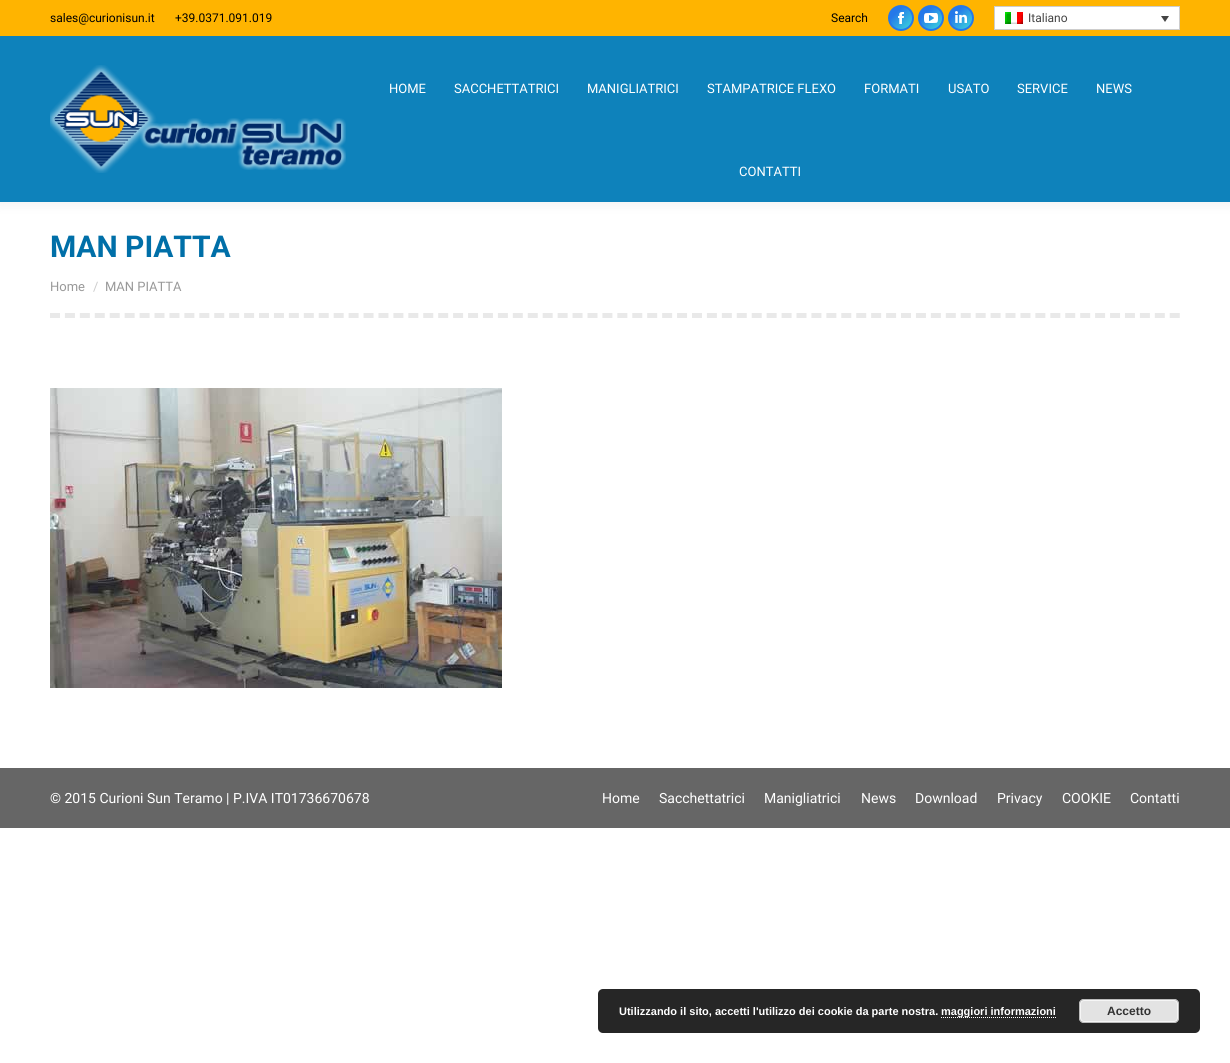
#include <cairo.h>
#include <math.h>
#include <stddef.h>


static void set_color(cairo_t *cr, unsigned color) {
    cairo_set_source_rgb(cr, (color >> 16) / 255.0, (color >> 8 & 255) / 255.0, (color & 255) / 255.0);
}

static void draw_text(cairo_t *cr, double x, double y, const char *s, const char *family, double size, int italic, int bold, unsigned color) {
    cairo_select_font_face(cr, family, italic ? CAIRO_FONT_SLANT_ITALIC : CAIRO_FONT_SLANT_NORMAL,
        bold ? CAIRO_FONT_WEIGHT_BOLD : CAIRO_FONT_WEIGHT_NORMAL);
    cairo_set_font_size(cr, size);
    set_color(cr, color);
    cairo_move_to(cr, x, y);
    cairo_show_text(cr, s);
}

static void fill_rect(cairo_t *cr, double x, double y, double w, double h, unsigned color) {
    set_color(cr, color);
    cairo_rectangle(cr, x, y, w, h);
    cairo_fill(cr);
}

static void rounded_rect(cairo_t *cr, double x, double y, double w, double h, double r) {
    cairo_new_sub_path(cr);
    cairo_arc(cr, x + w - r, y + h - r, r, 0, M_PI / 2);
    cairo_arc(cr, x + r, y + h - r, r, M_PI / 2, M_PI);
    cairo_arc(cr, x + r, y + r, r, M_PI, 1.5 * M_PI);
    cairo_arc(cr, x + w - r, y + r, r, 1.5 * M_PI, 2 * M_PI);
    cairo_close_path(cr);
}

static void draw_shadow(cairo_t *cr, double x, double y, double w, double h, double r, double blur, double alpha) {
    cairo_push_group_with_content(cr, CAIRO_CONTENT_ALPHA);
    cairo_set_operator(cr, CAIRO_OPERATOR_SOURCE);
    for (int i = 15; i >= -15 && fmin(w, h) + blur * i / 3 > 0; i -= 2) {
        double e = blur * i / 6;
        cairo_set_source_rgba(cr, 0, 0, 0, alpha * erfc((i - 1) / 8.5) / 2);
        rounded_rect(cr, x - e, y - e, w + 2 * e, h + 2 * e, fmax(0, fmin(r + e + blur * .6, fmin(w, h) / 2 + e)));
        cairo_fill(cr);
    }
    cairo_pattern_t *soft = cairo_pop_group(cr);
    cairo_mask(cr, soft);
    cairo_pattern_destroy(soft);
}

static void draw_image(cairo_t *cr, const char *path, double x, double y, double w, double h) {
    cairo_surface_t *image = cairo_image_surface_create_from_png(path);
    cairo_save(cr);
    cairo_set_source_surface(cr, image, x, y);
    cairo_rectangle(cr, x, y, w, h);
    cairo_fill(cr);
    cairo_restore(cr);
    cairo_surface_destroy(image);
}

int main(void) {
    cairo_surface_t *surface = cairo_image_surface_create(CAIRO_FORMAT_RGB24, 1230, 1063);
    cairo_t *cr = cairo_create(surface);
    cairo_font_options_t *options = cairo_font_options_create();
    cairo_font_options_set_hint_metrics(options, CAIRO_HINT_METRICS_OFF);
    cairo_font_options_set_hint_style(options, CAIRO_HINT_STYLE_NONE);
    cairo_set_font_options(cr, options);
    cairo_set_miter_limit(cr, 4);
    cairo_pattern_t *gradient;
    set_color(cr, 0xFFFFFF);
    cairo_paint(cr);
    set_color(cr, 0x000000);
    draw_shadow(cr, -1, -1, 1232, 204, 0, 7.5, 0.07);
    fill_rect(cr, 0, 36, 1230, 166, 0x0E82BB);
    fill_rect(cr, 0, 0, 1230, 36, 0xFFB400);
    draw_text(cr, 50, 22, "sales@curionisun.it", "Roboto", 12, 0, 0, 0x000000);
    draw_text(cr, 175, 22, "+39.0371.091.019", "Roboto", 12, 0, 0, 0x000000);
    draw_text(cr, 831, 22, "Search", "Roboto", 12, 0, 0, 0x000000);
    gradient = cairo_pattern_create_linear(888, 5, 914, 31);
    cairo_pattern_add_color_stop_rgba(gradient, 0.3, 0.145, 0.471, 0.914, 1);
    cairo_pattern_add_color_stop_rgba(gradient, 1, 0.247, 0.906, 0.851, 1);
    cairo_set_source(cr, gradient);
    cairo_pattern_destroy(gradient);
    cairo_new_path(cr);
    cairo_arc(cr, 901, 18, 12, 0, 2 * M_PI);
    cairo_fill_preserve(cr);
    set_color(cr, 0x2578E9);
    cairo_stroke(cr);
    draw_image(cr, "assets/img1.png", 898, 12, 6, 12);
    gradient = cairo_pattern_create_linear(918, 5, 944, 31);
    cairo_pattern_add_color_stop_rgba(gradient, 0.3, 0.145, 0.471, 0.914, 1);
    cairo_pattern_add_color_stop_rgba(gradient, 1, 0.247, 0.906, 0.851, 1);
    cairo_set_source(cr, gradient);
    cairo_pattern_destroy(gradient);
    cairo_arc(cr, 931, 18, 12, 0, 2 * M_PI);
    cairo_fill_preserve(cr);
    set_color(cr, 0x2578E9);
    cairo_stroke(cr);
    draw_image(cr, "assets/img2.png", 924, 13, 14, 10);
    gradient = cairo_pattern_create_linear(948, 5, 974, 31);
    cairo_pattern_add_color_stop_rgba(gradient, 0.3, 0.145, 0.471, 0.914, 1);
    cairo_pattern_add_color_stop_rgba(gradient, 1, 0.247, 0.906, 0.851, 1);
    cairo_set_source(cr, gradient);
    cairo_pattern_destroy(gradient);
    cairo_arc(cr, 961, 18, 12, 0, 2 * M_PI);
    cairo_fill_preserve(cr);
    set_color(cr, 0x2578E9);
    cairo_stroke(cr);
    draw_image(cr, "assets/img3.png", 955, 11, 12, 12);
    set_color(cr, 0xFFFFFF);
    cairo_rectangle(cr, 994.5, 6.5, 185, 23);
    cairo_fill_preserve(cr);
    set_color(cr, 0xCDCDCD);
    cairo_set_line_width(cr, 1);
    cairo_stroke(cr);
    draw_image(cr, "assets/img4.png", 1005, 12, 18, 12);
    draw_text(cr, 1028, 22, "Italiano", "Roboto", 12, 0, 0, 0x444444);
    cairo_new_path(cr);
    cairo_move_to(cr, 1161, 16);
    cairo_line_to(cr, 1169, 16);
    cairo_line_to(cr, 1165, 22);
    cairo_close_path(cr);
    cairo_fill(cr);
    draw_image(cr, "assets/img5.png", 50, 65, 296, 108);
    draw_text(cr, 389, 93, "HOME", "Roboto", 13, 0, 0, 0xFFFFFF);
    draw_text(cr, 454, 93, "SACCHETTATRICI", "Roboto", 13, 0, 0, 0xFFFFFF);
    draw_text(cr, 587, 93, "MANIGLIATRICI", "Roboto", 13, 0, 0, 0xFFFFFF);
    draw_text(cr, 707, 93, "STAMPATRICE FLEXO", "Roboto", 13, 0, 0, 0xFFFFFF);
    draw_text(cr, 864, 93, "FORMATI", "Roboto", 13, 0, 0, 0xFFFFFF);
    draw_text(cr, 948, 93, "USATO", "Roboto", 13, 0, 0, 0xFFFFFF);
    draw_text(cr, 1017, 93, "SERVICE", "Roboto", 13, 0, 0, 0xFFFFFF);
    draw_text(cr, 1096, 93, "NEWS", "Roboto", 13, 0, 0, 0xFFFFFF);
    draw_text(cr, 739, 176, "CONTATTI", "Roboto", 13, 0, 0, 0xFFFFFF);
    draw_text(cr, 50, 257, "MAN PIATTA", "Roboto", 30, 0, 1, 0x006FA8);
    draw_text(cr, 50, 291, "Home", "Roboto", 13, 0, 0, 0x999999);
    draw_text(cr, 93, 291, "/", "Roboto", 13, 0, 0, 0xCCCCCC);
    draw_text(cr, 105, 291, "MAN PIATTA", "Roboto", 13, 0, 0, 0x999999);
    cairo_new_path(cr);
    cairo_move_to(cr, 50, 315.5);
    cairo_line_to(cr, 1180, 315.5);
    set_color(cr, 0xE9E9E9);
    cairo_set_line_width(cr, 5);
    cairo_set_dash(cr, (double[]){10, 4.93}, 2, 0);
    cairo_stroke(cr);
    draw_image(cr, "assets/img6.png", 50, 388, 452, 300);
    fill_rect(cr, 0, 768, 1230, 60, 0x666666);
    draw_text(cr, 50, 803, "© 2015 Curioni Sun Teramo | P.IVA IT01736670678", "Roboto", 14, 0, 0, 0xFFFFFF);
    draw_text(cr, 602, 803, "Home", "Roboto", 14, 0, 0, 0xFFFFFF);
    draw_text(cr, 659, 803, "Sacchettatrici", "Roboto", 14, 0, 0, 0xFFFFFF);
    draw_text(cr, 764, 803, "Manigliatrici", "Roboto", 14, 0, 0, 0xFFFFFF);
    draw_text(cr, 861, 803, "News", "Roboto", 14, 0, 0, 0xFFFFFF);
    draw_text(cr, 915, 803, "Download", "Roboto", 14, 0, 0, 0xFFFFFF);
    draw_text(cr, 997, 803, "Privacy", "Roboto", 14, 0, 0, 0xFFFFFF);
    draw_text(cr, 1062, 803, "COOKIE", "Roboto", 14, 0, 0, 0xFFFFFF);
    draw_text(cr, 1130, 803, "Contatti", "Roboto", 14, 0, 0, 0xFFFFFF);
    set_color(cr, 0x262626);
    rounded_rect(cr, 598, 989, 602, 44, 5);
    cairo_fill(cr);
    draw_text(cr, 619, 1015, "Utilizzando il sito, accetti l'utilizzo dei cookie da parte nostra.", "Liberation Sans", 11, 0, 1, 0xFFFFFF);
    cairo_new_path(cr);
    cairo_move_to(cr, 941, 1017.5);
    cairo_line_to(cr, 1056, 1017.5);
    cairo_set_line_width(cr, 1);
    cairo_set_dash(cr, (double[]){1, 1}, 2, 0);
    cairo_stroke(cr);
    draw_text(cr, 941, 1015, "maggiori informazioni", "Liberation Sans", 11, 0, 1, 0xFFFFFF);
    set_color(cr, 0xE3E3E3);
    rounded_rect(cr, 1079, 999, 100, 24, 5);
    cairo_fill(cr);
    rounded_rect(cr, 1080.5, 1000.5, 97, 21, 3.5);
    set_color(cr, 0xF6F6F6);
    cairo_set_dash(cr, NULL, 0, 0);
    cairo_stroke(cr);
    rounded_rect(cr, 1079.5, 999.5, 99, 23, 4.5);
    set_color(cr, 0xBBBBBB);
    cairo_stroke(cr);
    draw_text(cr, 1107, 1015, "Accetto", "Liberation Sans", 12, 0, 1, 0x333333);
    cairo_surface_write_to_png(surface, "output.png");
    cairo_font_options_destroy(options);
    cairo_destroy(cr);
    cairo_surface_destroy(surface);
    return 0;
}
